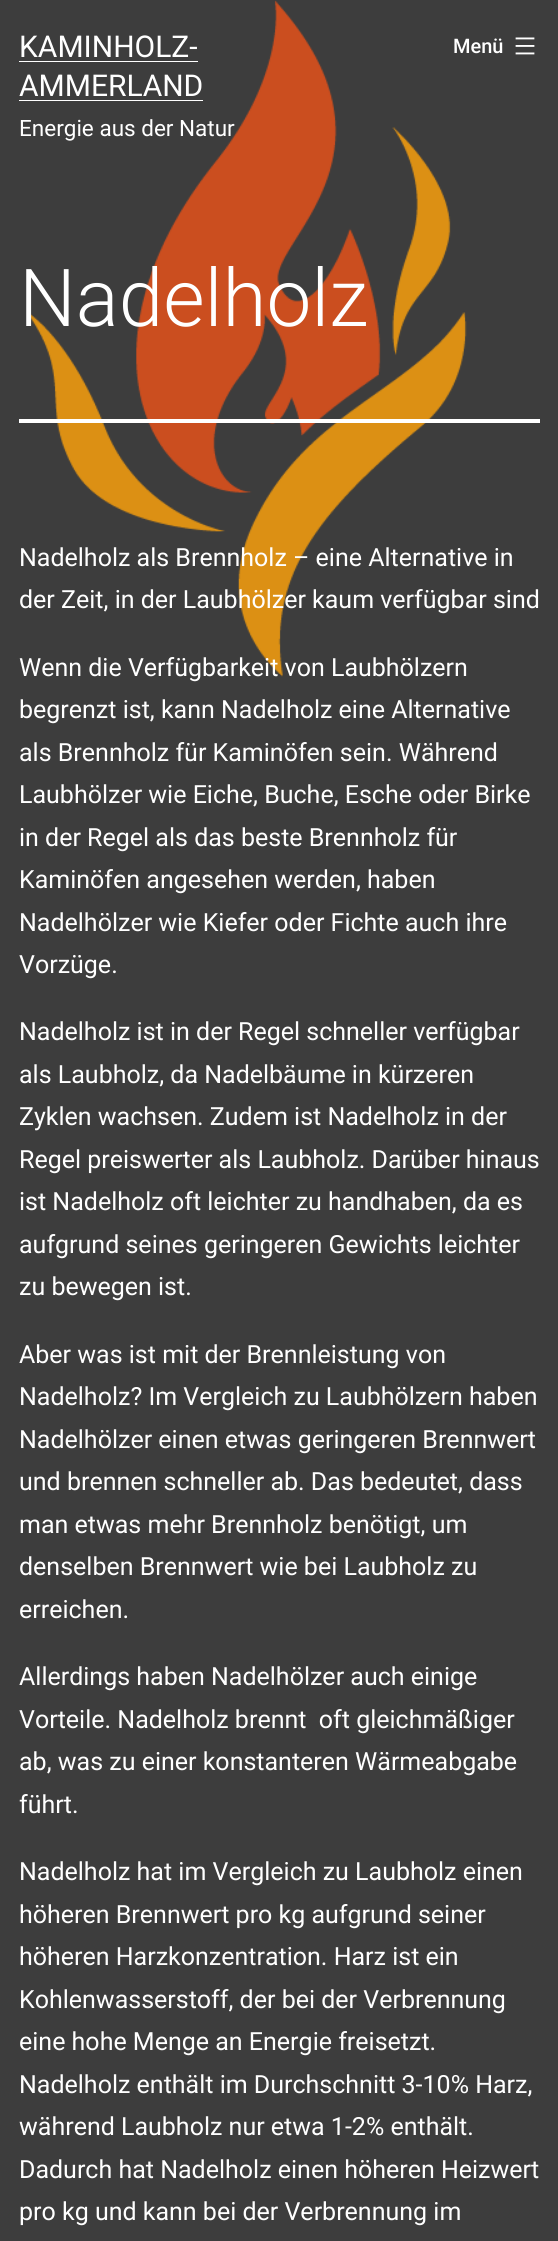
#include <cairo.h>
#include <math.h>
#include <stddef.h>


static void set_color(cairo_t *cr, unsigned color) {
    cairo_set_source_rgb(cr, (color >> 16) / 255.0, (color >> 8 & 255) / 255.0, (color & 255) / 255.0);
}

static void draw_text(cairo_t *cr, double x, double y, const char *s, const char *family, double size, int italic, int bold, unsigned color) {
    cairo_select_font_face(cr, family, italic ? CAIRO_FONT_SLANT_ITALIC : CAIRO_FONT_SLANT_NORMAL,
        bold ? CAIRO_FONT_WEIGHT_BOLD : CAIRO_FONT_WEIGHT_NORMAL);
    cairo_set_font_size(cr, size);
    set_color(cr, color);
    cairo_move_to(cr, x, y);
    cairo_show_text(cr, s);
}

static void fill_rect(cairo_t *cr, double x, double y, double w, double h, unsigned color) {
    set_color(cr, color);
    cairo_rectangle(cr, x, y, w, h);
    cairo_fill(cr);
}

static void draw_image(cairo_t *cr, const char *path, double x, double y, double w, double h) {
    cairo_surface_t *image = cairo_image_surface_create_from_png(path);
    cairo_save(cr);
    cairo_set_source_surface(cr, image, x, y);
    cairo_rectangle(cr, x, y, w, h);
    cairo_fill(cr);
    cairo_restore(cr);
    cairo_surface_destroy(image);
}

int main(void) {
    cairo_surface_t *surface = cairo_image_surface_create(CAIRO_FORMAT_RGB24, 558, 2241);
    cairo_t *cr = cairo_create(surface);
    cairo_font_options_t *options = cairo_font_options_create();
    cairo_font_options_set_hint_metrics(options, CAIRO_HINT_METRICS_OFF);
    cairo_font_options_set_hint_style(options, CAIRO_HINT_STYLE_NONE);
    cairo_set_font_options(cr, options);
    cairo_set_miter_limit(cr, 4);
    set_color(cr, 0x3D3D3D);
    cairo_paint(cr);
    draw_image(cr, "assets/img1.png", 26, 0, 441, 677);
    draw_text(cr, 19, 57, "KAMINHOLZ-", "Roboto", 30, 0, 0, 0xFFFFFF);
    fill_rect(cr, 19, 61, 179, 1, 0xFFFFFF);
    draw_text(cr, 19, 96, "AMMERLAND", "Roboto", 30, 0, 0, 0xFFFFFF);
    fill_rect(cr, 19, 100, 184, 1, 0xFFFFFF);
    draw_text(cr, 19, 136, "Energie aus der Natur", "Roboto", 22.5, 0, 0, 0xFFFFFF);
    draw_text(cr, 453, 53, "Menü", "Roboto Medium", 20, 0, 0, 0xFFFFFF);
    draw_image(cr, "assets/img2.png", 515, 37, 20, 18);
    fill_rect(cr, 19, 419, 521, 4, 0xFFFFFF);
    draw_text(cr, 19, 326, "Nadelholz", "Roboto Light", 80, 0, 0, 0xFFFFFF);
    draw_text(cr, 19, 566, "Nadelholz als Brennholz – eine Alternative in", "Roboto", 25, 0, 0, 0xFFFFFF);
    draw_text(cr, 19, 608, "der Zeit, in der Laubhölzer kaum verfügbar sind", "Roboto", 25, 0, 0, 0xFFFFFF);
    draw_text(cr, 19, 676, "Wenn die Verfügbarkeit von Laubhölzern", "Roboto", 25, 0, 0, 0xFFFFFF);
    draw_text(cr, 19, 718, "begrenzt ist, kann Nadelholz eine Alternative", "Roboto", 25, 0, 0, 0xFFFFFF);
    draw_text(cr, 19, 761, "als Brennholz für Kaminöfen sein. Während", "Roboto", 25, 0, 0, 0xFFFFFF);
    draw_text(cr, 19, 803, "Laubhölzer wie Eiche, Buche, Esche oder Birke", "Roboto", 25, 0, 0, 0xFFFFFF);
    draw_text(cr, 19, 846, "in der Regel als das beste Brennholz für", "Roboto", 25, 0, 0, 0xFFFFFF);
    draw_text(cr, 19, 888, "Kaminöfen angesehen werden, haben", "Roboto", 25, 0, 0, 0xFFFFFF);
    draw_text(cr, 19, 931, "Nadelhölzer wie Kiefer oder Fichte auch ihre", "Roboto", 25, 0, 0, 0xFFFFFF);
    draw_text(cr, 19, 973, "Vorzüge.", "Roboto", 25, 0, 0, 0xFFFFFF);
    draw_text(cr, 19, 1040, "Nadelholz ist in der Regel schneller verfügbar", "Roboto", 25, 0, 0, 0xFFFFFF);
    draw_text(cr, 19, 1083, "als Laubholz, da Nadelbäume in kürzeren", "Roboto", 25, 0, 0, 0xFFFFFF);
    draw_text(cr, 19, 1125, "Zyklen wachsen. Zudem ist Nadelholz in der", "Roboto", 25, 0, 0, 0xFFFFFF);
    draw_text(cr, 19, 1168, "Regel preiswerter als Laubholz. Darüber hinaus", "Roboto", 25, 0, 0, 0xFFFFFF);
    draw_text(cr, 19, 1210, "ist Nadelholz oft leichter zu handhaben, da es", "Roboto", 25, 0, 0, 0xFFFFFF);
    draw_text(cr, 19, 1253, "aufgrund seines geringeren Gewichts leichter", "Roboto", 25, 0, 0, 0xFFFFFF);
    draw_text(cr, 19, 1295, "zu bewegen ist.", "Roboto", 25, 0, 0, 0xFFFFFF);
    draw_text(cr, 19, 1363, "Aber was ist mit der Brennleistung von", "Roboto", 25, 0, 0, 0xFFFFFF);
    draw_text(cr, 19, 1405, "Nadelholz? Im Vergleich zu Laubhölzern haben", "Roboto", 25, 0, 0, 0xFFFFFF);
    draw_text(cr, 19, 1448, "Nadelhölzer einen etwas geringeren Brennwert", "Roboto", 25, 0, 0, 0xFFFFFF);
    draw_text(cr, 19, 1490, "und brennen schneller ab. Das bedeutet, dass", "Roboto", 25, 0, 0, 0xFFFFFF);
    draw_text(cr, 19, 1533, "man etwas mehr Brennholz benötigt, um", "Roboto", 25, 0, 0, 0xFFFFFF);
    draw_text(cr, 19, 1575, "denselben Brennwert wie bei Laubholz zu", "Roboto", 25, 0, 0, 0xFFFFFF);
    draw_text(cr, 19, 1618, "erreichen.", "Roboto", 25, 0, 0, 0xFFFFFF);
    draw_text(cr, 19, 1685, "Allerdings haben Nadelhölzer auch einige", "Roboto", 25, 0, 0, 0xFFFFFF);
    draw_text(cr, 19, 1728, "Vorteile. Nadelholz brennt  oft gleichmäßiger", "Roboto", 25, 0, 0, 0xFFFFFF);
    draw_text(cr, 19, 1770, "ab, was zu einer konstanteren Wärmeabgabe", "Roboto", 25, 0, 0, 0xFFFFFF);
    draw_text(cr, 19, 1813, "führt.", "Roboto", 25, 0, 0, 0xFFFFFF);
    draw_text(cr, 19, 1880, "Nadelholz hat im Vergleich zu Laubholz einen", "Roboto", 25, 0, 0, 0xFFFFFF);
    draw_text(cr, 19, 1923, "höheren Brennwert pro kg aufgrund seiner", "Roboto", 25, 0, 0, 0xFFFFFF);
    draw_text(cr, 19, 1965, "höheren Harzkonzentration. Harz ist ein", "Roboto", 25, 0, 0, 0xFFFFFF);
    draw_text(cr, 19, 2008, "Kohlenwasserstoff, der bei der Verbrennung", "Roboto", 25, 0, 0, 0xFFFFFF);
    draw_text(cr, 19, 2050, "eine hohe Menge an Energie freisetzt.", "Roboto", 25, 0, 0, 0xFFFFFF);
    draw_text(cr, 19, 2093, "Nadelholz enthält im Durchschnitt 3-10% Harz,", "Roboto", 25, 0, 0, 0xFFFFFF);
    draw_text(cr, 19, 2135, "während Laubholz nur etwa 1-2% enthält.", "Roboto", 25, 0, 0, 0xFFFFFF);
    draw_text(cr, 19, 2178, "Dadurch hat Nadelholz einen höheren Heizwert", "Roboto", 25, 0, 0, 0xFFFFFF);
    draw_text(cr, 19, 2220, "pro kg und kann bei der Verbrennung im", "Roboto", 25, 0, 0, 0xFFFFFF);
    cairo_surface_write_to_png(surface, "output.png");
    cairo_font_options_destroy(options);
    cairo_destroy(cr);
    cairo_surface_destroy(surface);
    return 0;
}
